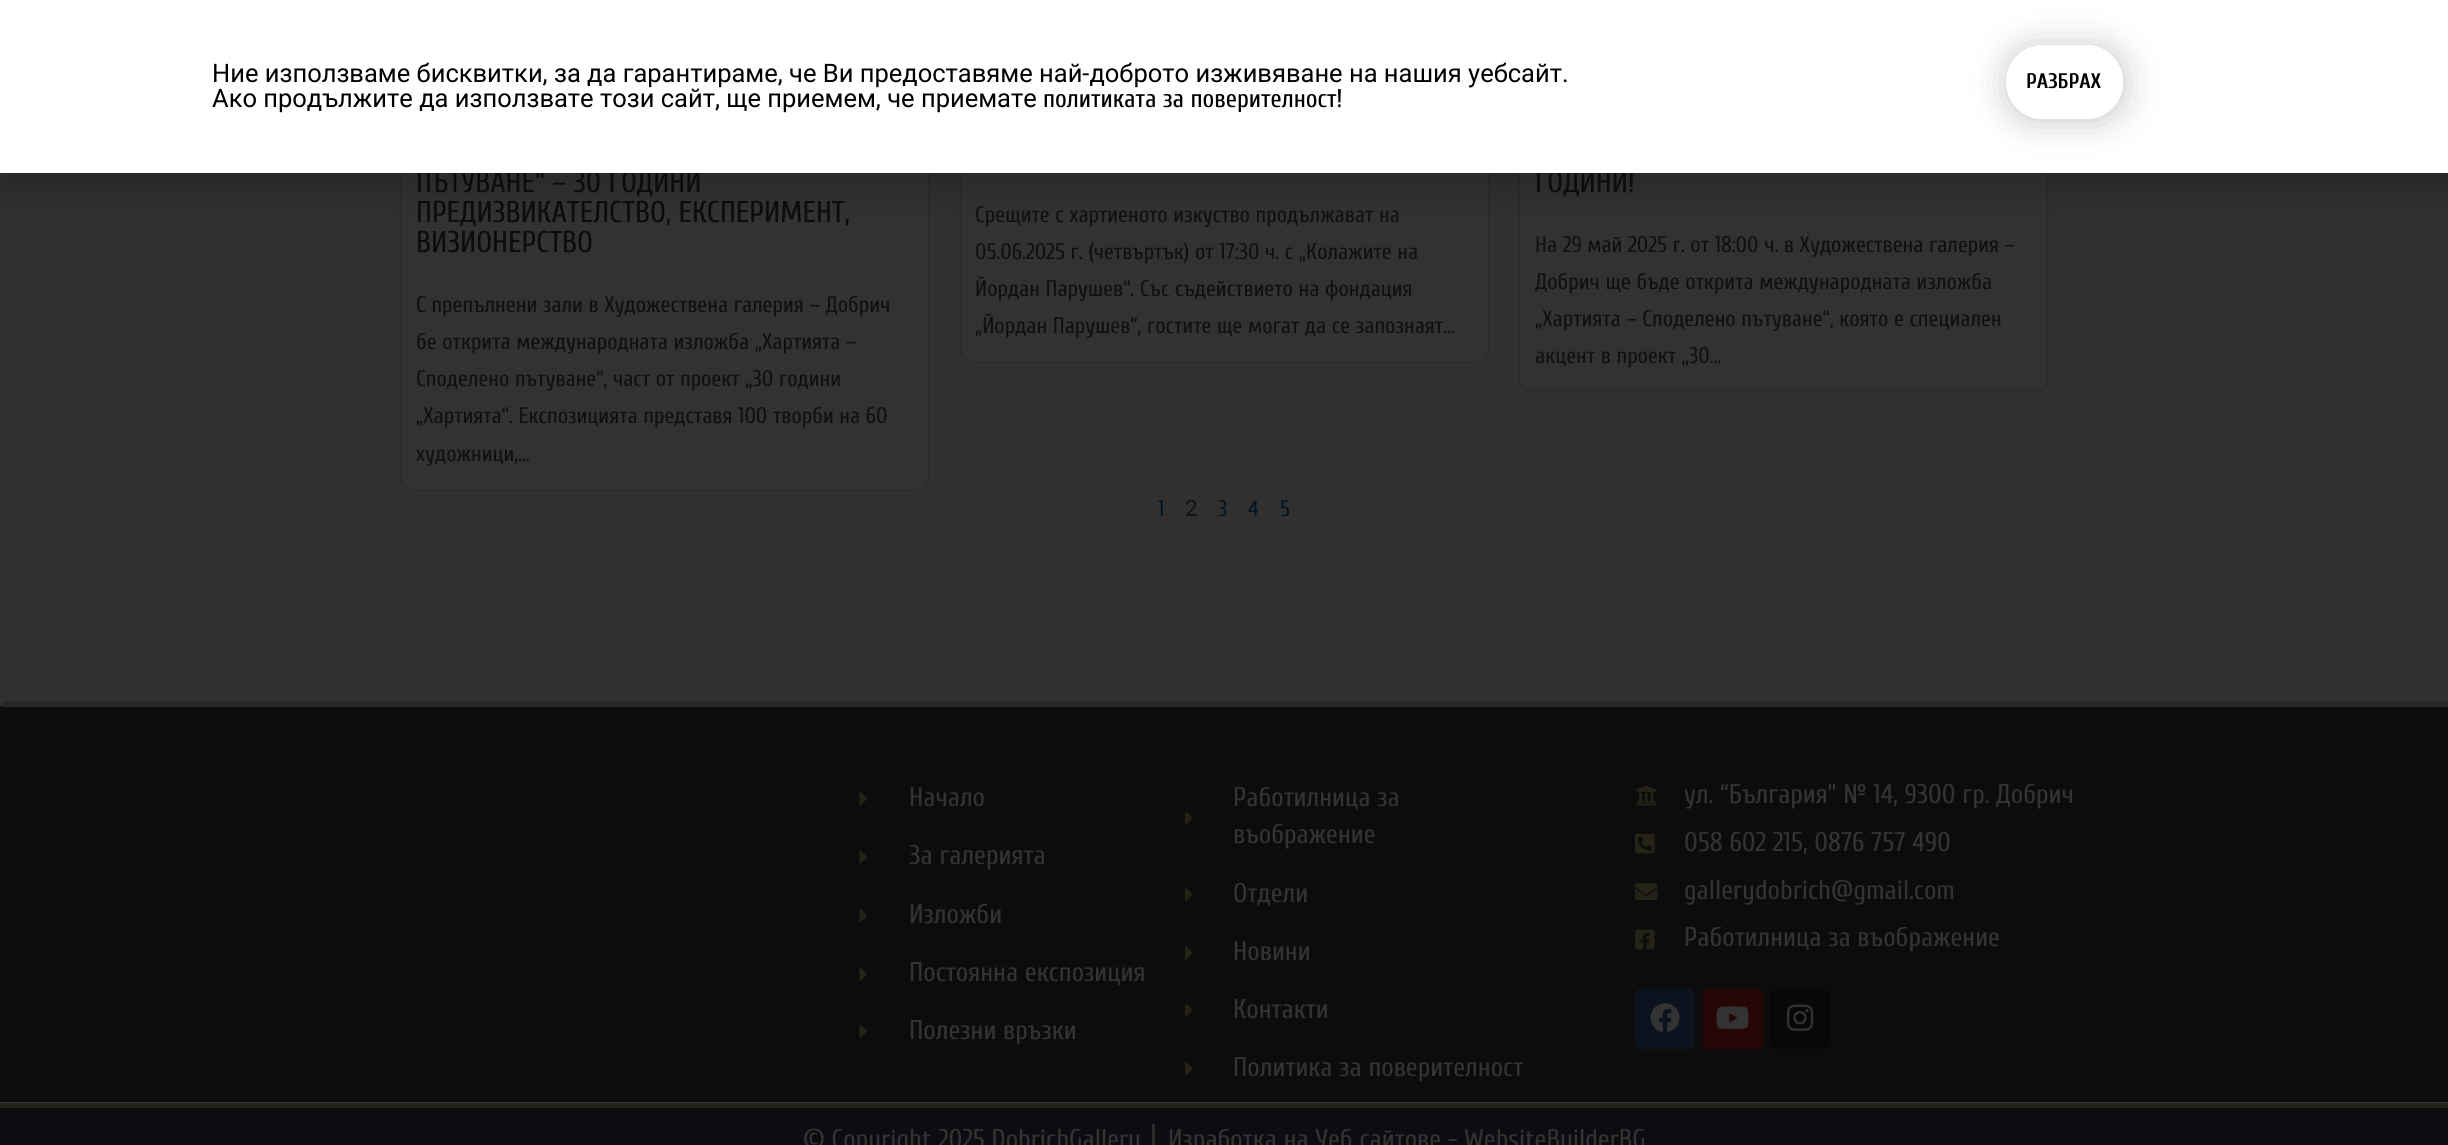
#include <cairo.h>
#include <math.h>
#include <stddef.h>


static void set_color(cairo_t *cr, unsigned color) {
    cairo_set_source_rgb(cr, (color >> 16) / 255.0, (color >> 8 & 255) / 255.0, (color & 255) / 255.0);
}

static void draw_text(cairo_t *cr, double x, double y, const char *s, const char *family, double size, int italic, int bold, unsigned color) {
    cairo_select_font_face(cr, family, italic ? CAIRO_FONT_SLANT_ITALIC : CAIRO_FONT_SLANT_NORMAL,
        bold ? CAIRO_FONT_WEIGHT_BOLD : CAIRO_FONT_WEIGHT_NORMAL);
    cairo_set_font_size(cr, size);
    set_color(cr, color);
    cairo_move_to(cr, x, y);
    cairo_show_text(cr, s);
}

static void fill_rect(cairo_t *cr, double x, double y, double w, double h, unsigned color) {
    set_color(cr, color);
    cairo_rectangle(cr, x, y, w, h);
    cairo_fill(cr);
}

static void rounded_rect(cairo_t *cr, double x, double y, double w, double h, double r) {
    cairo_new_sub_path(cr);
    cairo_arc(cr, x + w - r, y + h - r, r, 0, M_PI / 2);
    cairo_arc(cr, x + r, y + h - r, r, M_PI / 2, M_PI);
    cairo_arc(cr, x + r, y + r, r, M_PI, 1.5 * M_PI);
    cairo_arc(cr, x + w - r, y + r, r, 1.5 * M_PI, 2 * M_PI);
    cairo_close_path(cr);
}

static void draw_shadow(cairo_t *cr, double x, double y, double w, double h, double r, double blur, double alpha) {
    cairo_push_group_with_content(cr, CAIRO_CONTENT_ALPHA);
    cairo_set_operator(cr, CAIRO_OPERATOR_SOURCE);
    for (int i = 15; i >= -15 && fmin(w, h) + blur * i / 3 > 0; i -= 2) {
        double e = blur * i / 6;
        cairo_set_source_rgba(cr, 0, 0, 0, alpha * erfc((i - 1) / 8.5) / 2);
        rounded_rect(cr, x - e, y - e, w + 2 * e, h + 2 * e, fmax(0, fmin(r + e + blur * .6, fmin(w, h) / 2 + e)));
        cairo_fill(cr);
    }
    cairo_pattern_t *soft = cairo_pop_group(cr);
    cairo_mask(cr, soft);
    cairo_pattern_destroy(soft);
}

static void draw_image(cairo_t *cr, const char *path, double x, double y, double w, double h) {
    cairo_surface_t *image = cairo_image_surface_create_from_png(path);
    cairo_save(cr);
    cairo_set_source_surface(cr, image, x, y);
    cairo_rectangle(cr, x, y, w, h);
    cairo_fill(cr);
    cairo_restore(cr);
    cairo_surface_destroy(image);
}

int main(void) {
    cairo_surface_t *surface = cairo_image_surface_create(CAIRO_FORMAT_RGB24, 2448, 1145);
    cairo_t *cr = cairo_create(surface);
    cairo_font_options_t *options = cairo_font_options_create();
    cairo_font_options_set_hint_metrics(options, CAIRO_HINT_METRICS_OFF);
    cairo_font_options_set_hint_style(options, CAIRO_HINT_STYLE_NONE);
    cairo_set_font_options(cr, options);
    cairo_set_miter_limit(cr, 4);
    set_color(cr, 0x333333);
    cairo_paint(cr);
    fill_rect(cr, 0, 173, 2448, 529, 0x32302F);
    set_color(cr, 0x323232);
    cairo_new_path(cr);
    cairo_move_to(cr, 400, -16);
    cairo_line_to(cr, 929, -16);
    cairo_line_to(cr, 929, 476);
    cairo_curve_to(cr, 929, 483.5, 922.5, 490, 915, 490);
    cairo_line_to(cr, 414, 490);
    cairo_curve_to(cr, 406.5, 490, 400, 483.5, 400, 476);
    cairo_close_path(cr);
    cairo_fill_preserve(cr);
    set_color(cr, 0x2C2C2C);
    cairo_stroke(cr);
    set_color(cr, 0x323232);
    cairo_new_path(cr);
    cairo_move_to(cr, 960, -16);
    cairo_line_to(cr, 1489, -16);
    cairo_line_to(cr, 1489, 348);
    cairo_curve_to(cr, 1489, 355.5, 1482.5, 362, 1475, 362);
    cairo_line_to(cr, 974, 362);
    cairo_curve_to(cr, 966.5, 362, 960, 355.5, 960, 348);
    cairo_close_path(cr);
    cairo_fill_preserve(cr);
    set_color(cr, 0x2C2C2C);
    cairo_stroke(cr);
    set_color(cr, 0x323232);
    cairo_new_path(cr);
    cairo_move_to(cr, 1519, -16);
    cairo_line_to(cr, 2048, -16);
    cairo_line_to(cr, 2048, 378);
    cairo_curve_to(cr, 2048, 385.5, 2041.5, 392, 2034, 392);
    cairo_line_to(cr, 1533, 392);
    cairo_curve_to(cr, 1525.5, 392, 1519, 385.5, 1519, 378);
    cairo_close_path(cr);
    cairo_fill_preserve(cr);
    set_color(cr, 0x2C2C2C);
    cairo_stroke(cr);
    set_color(cr, 0x000000);
    draw_shadow(cr, -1, 8, 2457, 181, 0, 17, 0.2);
    draw_text(cr, 416, 192, "ПЪТУВАНЕ“ – 30 ГОДИНИ", "Cuprum", 30, 0, 0, 0x0C0C0C);
    draw_text(cr, 1535, 192, "ГОДИНИ!", "Cuprum", 30, 0, 0, 0x0C0C0C);
    fill_rect(cr, 0, 0, 2448, 173, 0xFFFFFF);
    draw_text(cr, 212, 82, "Ние използваме бисквитки, за да гарантираме, че Ви предоставяме най-доброто изживяване на нашия уебсайт.", "Roboto", 25.5, 0, 0, 0x000000);
    draw_text(cr, 212, 107, "Ако продължите да използвате този сайт, ще приемем, че приемате", "Roboto", 25.5, 0, 0, 0x000000);
    draw_text(cr, 1043, 107, "политиката за поверителност!", "Cuprum", 25.5, 0, 0, 0x000000);
    cairo_save(cr);
    cairo_set_fill_rule(cr, CAIRO_FILL_RULE_EVEN_ODD);
    cairo_new_path(cr);
    cairo_move_to(cr, 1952, 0);
    cairo_line_to(cr, 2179, 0);
    cairo_line_to(cr, 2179, 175);
    cairo_line_to(cr, 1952, 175);
    cairo_close_path(cr);
    cairo_move_to(cr, 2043, 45);
    cairo_line_to(cr, 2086, 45);
    cairo_curve_to(cr, 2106.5, 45, 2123, 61.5, 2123, 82);
    cairo_curve_to(cr, 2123, 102.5, 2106.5, 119, 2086, 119);
    cairo_line_to(cr, 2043, 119);
    cairo_curve_to(cr, 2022.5, 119, 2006, 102.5, 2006, 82);
    cairo_curve_to(cr, 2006, 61.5, 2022.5, 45, 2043, 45);
    cairo_close_path(cr);
    cairo_clip(cr);
    set_color(cr, 0x000000);
    draw_shadow(cr, 2007, 47, 117, 73, 36.5, 18, 0.23);
    cairo_restore(cr);
    rounded_rect(cr, 2007.5, 46.5, 114, 71, 35.5);
    set_color(cr, 0xFFFFFF);
    cairo_set_line_width(cr, 3);
    cairo_stroke(cr);
    draw_text(cr, 2026, 88, "РАЗБРАХ", "Cuprum", 21, 0, 1, 0x000000);
    draw_text(cr, 416, 222, "ПРЕДИЗВИКАТЕЛСТВО, ЕКСПЕРИМЕНТ,", "Cuprum", 30, 0, 0, 0x0C0C0C);
    draw_text(cr, 416, 252, "ВИЗИОНЕРСТВО", "Cuprum", 30, 0, 0, 0x0C0C0C);
    draw_text(cr, 416, 312, "С препълнени зали в Художествена галерия – Добрич", "Cuprum", 22.5, 0, 0, 0x0F1012);
    draw_text(cr, 416, 349, "бе открита международната изложба „Хартията –", "Cuprum", 22.5, 0, 0, 0x0F1012);
    draw_text(cr, 416, 386, "Споделено пътуване“, част от проект „30 години", "Cuprum", 22.5, 0, 0, 0x0F1012);
    draw_text(cr, 416, 423, "„Хартията“. Експозицията представя 100 творби на 60", "Cuprum", 22.5, 0, 0, 0x0F1012);
    draw_text(cr, 416, 461, "художници,…", "Cuprum", 22.5, 0, 0, 0x0F1012);
    draw_text(cr, 975, 222, "Срещите с хартиеното изкуство продължават на", "Cuprum", 22.5, 0, 0, 0x0F1012);
    draw_text(cr, 975, 259, "05.06.2025 г. (четвъртък) от 17:30 ч. с „Колажите на", "Cuprum", 22.5, 0, 0, 0x0F1012);
    draw_text(cr, 975, 296, "Йордан Парушев“. Със съдействието на фондация", "Cuprum", 22.5, 0, 0, 0x0F1012);
    draw_text(cr, 975, 333, "„Йордан Парушев“, гостите ще могат да се запознаят…", "Cuprum", 22.5, 0, 0, 0x0F1012);
    draw_text(cr, 1535, 252, "На 29 май 2025 г. от 18:00 ч. в Художествена галерия –", "Cuprum", 22.5, 0, 0, 0x0F1012);
    draw_text(cr, 1535, 289, "Добрич ще бъде открита международната изложба", "Cuprum", 22.5, 0, 0, 0x0F1012);
    draw_text(cr, 1535, 326, "„Хартията – Споделено пътуване“, която е специален", "Cuprum", 22.5, 0, 0, 0x0F1012);
    draw_text(cr, 1535, 363, "акцент в проект „30…", "Cuprum", 22.5, 0, 0, 0x0F1012);
    draw_text(cr, 1158, 516, "1", "Cuprum", 22.5, 0, 0, 0x001625);
    draw_text(cr, 1185, 516, "2", "Roboto", 22.5, 0, 0, 0x0F1012);
    draw_text(cr, 1218, 516, "3", "Cuprum", 22.5, 0, 0, 0x001625);
    draw_text(cr, 1248, 516, "4", "Cuprum", 22.5, 0, 0, 0x001625);
    draw_text(cr, 1280, 516, "5", "Cuprum", 22.5, 0, 0, 0x001625);
    set_color(cr, 0x0C0C0C);
    cairo_new_path(cr);
    cairo_move_to(cr, 2, 706);
    cairo_line_to(cr, 2448, 706);
    cairo_line_to(cr, 2448, 1102);
    cairo_line_to(cr, 0, 1102);
    cairo_line_to(cr, 0, 706);
    cairo_close_path(cr);
    cairo_fill(cr);
    fill_rect(cr, 2, 702, 2446, 5, 0x272728);
    draw_image(cr, "assets/img1.png", 859, 792, 8, 14);
    draw_text(cr, 909, 806, "Начало", "Cuprum", 27, 0, 0, 0x333333);
    draw_image(cr, "assets/img2.png", 859, 850, 8, 14);
    draw_text(cr, 909, 864, "За галерията", "Cuprum", 27, 0, 0, 0x333333);
    draw_image(cr, "assets/img1.png", 859, 909, 8, 14);
    draw_text(cr, 909, 923, "Изложби", "Cuprum", 27, 0, 0, 0x333333);
    draw_image(cr, "assets/img2.png", 859, 967, 8, 14);
    draw_text(cr, 909, 981, "Постоянна експозиция", "Cuprum", 27, 0, 0, 0x333333);
    draw_image(cr, "assets/img2.png", 859, 1024, 8, 14);
    draw_text(cr, 909, 1039, "Полезни връзки", "Cuprum", 27, 0, 0, 0x333333);
    draw_image(cr, "assets/img3.png", 1185, 811, 8, 14);
    draw_text(cr, 1233, 806, "Работилница за", "Cuprum", 27, 0, 0, 0x333333);
    draw_text(cr, 1233, 843, "въображение", "Cuprum", 27, 0, 0, 0x333333);
    draw_image(cr, "assets/img4.png", 1185, 888, 8, 13);
    draw_text(cr, 1233, 902, "Отдели", "Cuprum", 27, 0, 0, 0x333333);
    draw_image(cr, "assets/img3.png", 1185, 946, 8, 14);
    draw_text(cr, 1233, 960, "Новини", "Cuprum", 27, 0, 0, 0x333333);
    draw_image(cr, "assets/img3.png", 1185, 1003, 8, 14);
    draw_text(cr, 1233, 1018, "Контакти", "Cuprum", 27, 0, 0, 0x333333);
    draw_image(cr, "assets/img4.png", 1185, 1062, 8, 13);
    draw_text(cr, 1233, 1076, "Политика за поверителност", "Cuprum", 27, 0, 0, 0x333333);
    draw_image(cr, "assets/img5.png", 1635, 785, 22, 21);
    draw_text(cr, 1684, 803, "ул. “България” № 14, 9300 гр. Добрич", "Cuprum", 27, 0, 0, 0x333333);
    draw_image(cr, "assets/img6.png", 1635, 833, 20, 21);
    draw_text(cr, 1684, 851, "058 602 215, 0876 757 490", "Cuprum", 27, 0, 0, 0x333333);
    draw_image(cr, "assets/img7.png", 1635, 883, 23, 17);
    draw_text(cr, 1684, 899, "gallerydobrich@gmail.com", "Cuprum", 27, 0, 0, 0x333333);
    draw_image(cr, "assets/img8.png", 1635, 929, 20, 21);
    draw_text(cr, 1684, 946, "Работилница за въображение", "Cuprum", 27, 0, 0, 0x333333);
    set_color(cr, 0x0C121E);
    rounded_rect(cr, 1635, 989, 60, 60, 6);
    cairo_fill(cr);
    draw_image(cr, "assets/img9.png", 1650, 1003, 30, 30);
    set_color(cr, 0x290606);
    rounded_rect(cr, 1703, 989, 60, 60, 6);
    cairo_fill(cr);
    draw_image(cr, "assets/img10.png", 1716, 1006, 33, 23);
    set_color(cr, 0x080808);
    rounded_rect(cr, 1770, 989, 60, 60, 6);
    cairo_fill(cr);
    draw_image(cr, "assets/img11.png", 1786, 1004, 28, 27);
    fill_rect(cr, 0, 1108, 2448, 37, 0x0D0C11);
    fill_rect(cr, 0, 1103, 2448, 5, 0x252216);
    draw_text(cr, 803, 1148, "© Copyright 2025 DobrichGallery", "Cuprum", 27, 0, 0, 0x333333);
    fill_rect(cr, 1152, 1124, 3, 21, 0x2C2C2C);
    draw_text(cr, 1168, 1148, "Изработка на Уеб сайтове - WebsiteBuilderBG", "Cuprum", 27, 0, 0, 0x333333);
    cairo_surface_write_to_png(surface, "output.png");
    cairo_font_options_destroy(options);
    cairo_destroy(cr);
    cairo_surface_destroy(surface);
    return 0;
}
